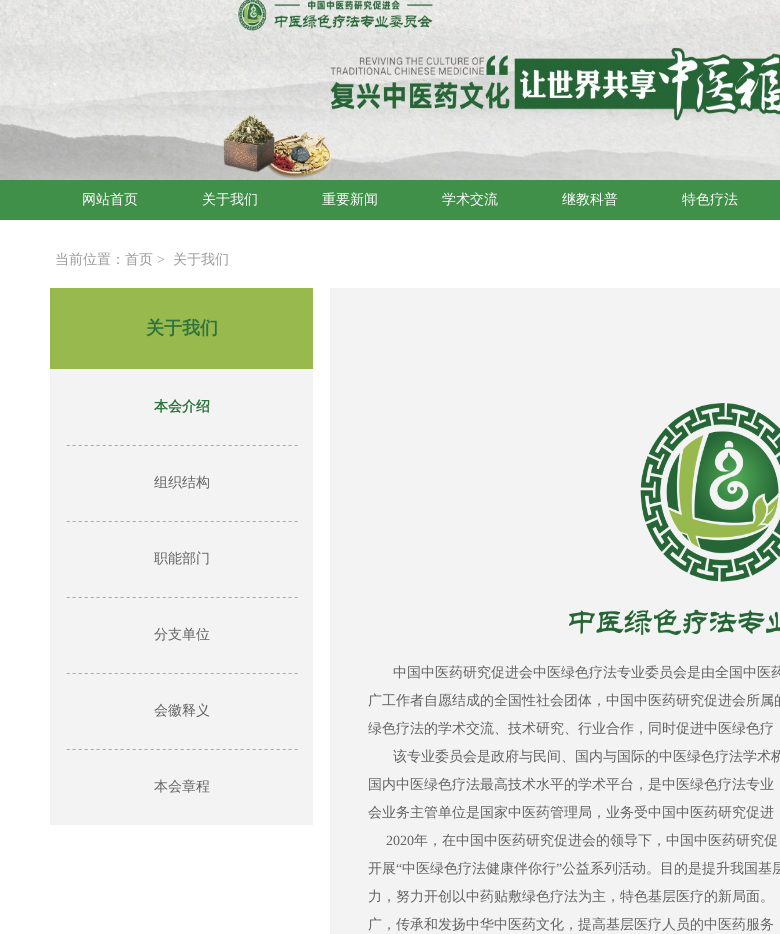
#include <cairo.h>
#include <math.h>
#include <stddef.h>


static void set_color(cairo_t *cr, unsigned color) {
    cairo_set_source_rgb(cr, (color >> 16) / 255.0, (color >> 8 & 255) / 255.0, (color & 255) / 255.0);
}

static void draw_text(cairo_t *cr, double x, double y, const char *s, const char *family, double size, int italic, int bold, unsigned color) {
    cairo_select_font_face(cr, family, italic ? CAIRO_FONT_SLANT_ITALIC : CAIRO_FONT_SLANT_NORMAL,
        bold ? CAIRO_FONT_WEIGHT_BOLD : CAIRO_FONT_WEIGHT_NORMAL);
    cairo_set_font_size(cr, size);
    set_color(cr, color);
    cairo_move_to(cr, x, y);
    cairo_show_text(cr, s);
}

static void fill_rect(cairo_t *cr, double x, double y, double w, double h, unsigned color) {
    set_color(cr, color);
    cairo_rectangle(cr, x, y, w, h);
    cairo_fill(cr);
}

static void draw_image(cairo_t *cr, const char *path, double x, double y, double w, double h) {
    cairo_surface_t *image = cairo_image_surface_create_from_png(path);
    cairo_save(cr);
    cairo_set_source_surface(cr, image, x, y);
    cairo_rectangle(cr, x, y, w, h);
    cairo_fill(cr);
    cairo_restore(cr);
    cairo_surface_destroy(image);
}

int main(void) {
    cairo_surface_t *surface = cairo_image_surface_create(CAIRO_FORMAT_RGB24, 780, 934);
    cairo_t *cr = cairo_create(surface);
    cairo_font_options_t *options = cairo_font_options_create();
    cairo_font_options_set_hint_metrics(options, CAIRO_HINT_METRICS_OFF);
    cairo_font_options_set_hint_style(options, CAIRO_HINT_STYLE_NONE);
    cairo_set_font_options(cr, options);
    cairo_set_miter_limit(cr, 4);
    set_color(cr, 0xFFFFFF);
    cairo_paint(cr);
    draw_image(cr, "assets/img1.png", 0, 0, 780, 180);
    fill_rect(cr, 0, 180, 780, 40, 0x409049);
    draw_text(cr, 82, 204, "网站首页", "WenQuanYi Zen Hei Medium", 14, 0, 0, 0xFFFFFF);
    draw_text(cr, 202, 204, "关于我们", "WenQuanYi Zen Hei Medium", 14, 0, 0, 0xFFFFFF);
    draw_text(cr, 322, 204, "重要新闻", "WenQuanYi Zen Hei Medium", 14, 0, 0, 0xFFFFFF);
    draw_text(cr, 442, 204, "学术交流", "WenQuanYi Zen Hei Medium", 14, 0, 0, 0xFFFFFF);
    draw_text(cr, 562, 204, "继教科普", "WenQuanYi Zen Hei Medium", 14, 0, 0, 0xFFFFFF);
    draw_text(cr, 682, 204, "特色疗法", "WenQuanYi Zen Hei Medium", 14, 0, 0, 0xFFFFFF);
    draw_text(cr, 55, 264, "当前位置：首页", "WenQuanYi Zen Hei Medium", 14, 0, 0, 0x999999);
    draw_text(cr, 157, 264, ">", "Liberation Serif", 14, 0, 0, 0x999999);
    draw_text(cr, 173, 264, "关于我们", "WenQuanYi Zen Hei Medium", 14, 0, 0, 0x999999);
    fill_rect(cr, 50, 369, 263, 456, 0xF3F3F3);
    fill_rect(cr, 50, 288, 263, 81, 0x98B94E);
    draw_text(cr, 146, 334, "关于我们", "WenQuanYi Zen Hei", 18, 0, 1, 0x2E733C);
    draw_text(cr, 154, 411, "本会介绍", "WenQuanYi Zen Hei", 14, 0, 1, 0x2E733C);
    draw_image(cr, "assets/img2.png", 66, 445, 232, 1);
    draw_text(cr, 154, 487, "组织结构", "WenQuanYi Zen Hei Medium", 14, 0, 0, 0x626262);
    draw_image(cr, "assets/img2.png", 66, 521, 232, 1);
    draw_text(cr, 154, 563, "职能部门", "WenQuanYi Zen Hei Medium", 14, 0, 0, 0x626262);
    draw_image(cr, "assets/img2.png", 66, 597, 232, 1);
    draw_text(cr, 154, 639, "分支单位", "WenQuanYi Zen Hei Medium", 14, 0, 0, 0x626262);
    draw_image(cr, "assets/img2.png", 66, 673, 232, 1);
    draw_text(cr, 154, 715, "会徽释义", "WenQuanYi Zen Hei Medium", 14, 0, 0, 0x626262);
    draw_image(cr, "assets/img2.png", 66, 749, 232, 1);
    draw_text(cr, 154, 791, "本会章程", "WenQuanYi Zen Hei Medium", 14, 0, 0, 0x626262);
    fill_rect(cr, 330, 288, 450, 646, 0xF3F3F3);
    draw_image(cr, "assets/img3.png", 569, 403, 211, 232);
    draw_text(cr, 393, 677, "中国中医药研究促进会中医绿色疗法专业委员会是由全国中医药", "WenQuanYi Zen Hei Medium", 14, 0, 0, 0x626262);
    draw_text(cr, 368, 705, "广工作者自愿结成的全国性社会团体，中国中医药研究促进会所属的", "WenQuanYi Zen Hei Medium", 14, 0, 0, 0x626262);
    draw_text(cr, 368, 733, "绿色疗法的学术交流、技术研究、行业合作，同时促进中医绿色疗", "WenQuanYi Zen Hei Medium", 14, 0, 0, 0x626262);
    draw_text(cr, 393, 761, "该专业委员会是政府与民间、国内与国际的中医绿色疗法学术桥", "WenQuanYi Zen Hei Medium", 14, 0, 0, 0x626262);
    draw_text(cr, 368, 789, "国内中医绿色疗法最高技术水平的学术平台，是中医绿色疗法专业", "WenQuanYi Zen Hei Medium", 14, 0, 0, 0x626262);
    draw_text(cr, 368, 817, "会业务主管单位是国家中医药管理局，业务受中国中医药研究促进", "WenQuanYi Zen Hei Medium", 14, 0, 0, 0x626262);
    draw_text(cr, 386, 845, "2020", "Liberation Serif", 14, 0, 0, 0x626262);
    draw_text(cr, 414, 845, "年，在中国中医药研究促进会的领导下，中国中医药研究促", "WenQuanYi Zen Hei Medium", 14, 0, 0, 0x626262);
    draw_text(cr, 368, 873, "开展", "WenQuanYi Zen Hei Medium", 14, 0, 0, 0x626262);
    draw_text(cr, 396, 873, "“", "Liberation Serif", 14, 0, 0, 0x626262);
    draw_text(cr, 402, 873, "中医绿色疗法健康伴你行", "WenQuanYi Zen Hei Medium", 14, 0, 0, 0x626262);
    draw_text(cr, 556, 873, "”", "Liberation Serif", 14, 0, 0, 0x626262);
    draw_text(cr, 562, 873, "公益系列活动。目的是提升我国基层", "WenQuanYi Zen Hei Medium", 14, 0, 0, 0x626262);
    draw_text(cr, 368, 901, "力，努力开创以中药贴敷绿色疗法为主，特色基层医疗的新局面。", "WenQuanYi Zen Hei Medium", 14, 0, 0, 0x626262);
    draw_text(cr, 368, 929, "广，传承和发扬中华中医药文化，提高基层医疗人员的中医药服务", "WenQuanYi Zen Hei Medium", 14, 0, 0, 0x626262);
    cairo_surface_write_to_png(surface, "output.png");
    cairo_font_options_destroy(options);
    cairo_destroy(cr);
    cairo_surface_destroy(surface);
    return 0;
}
